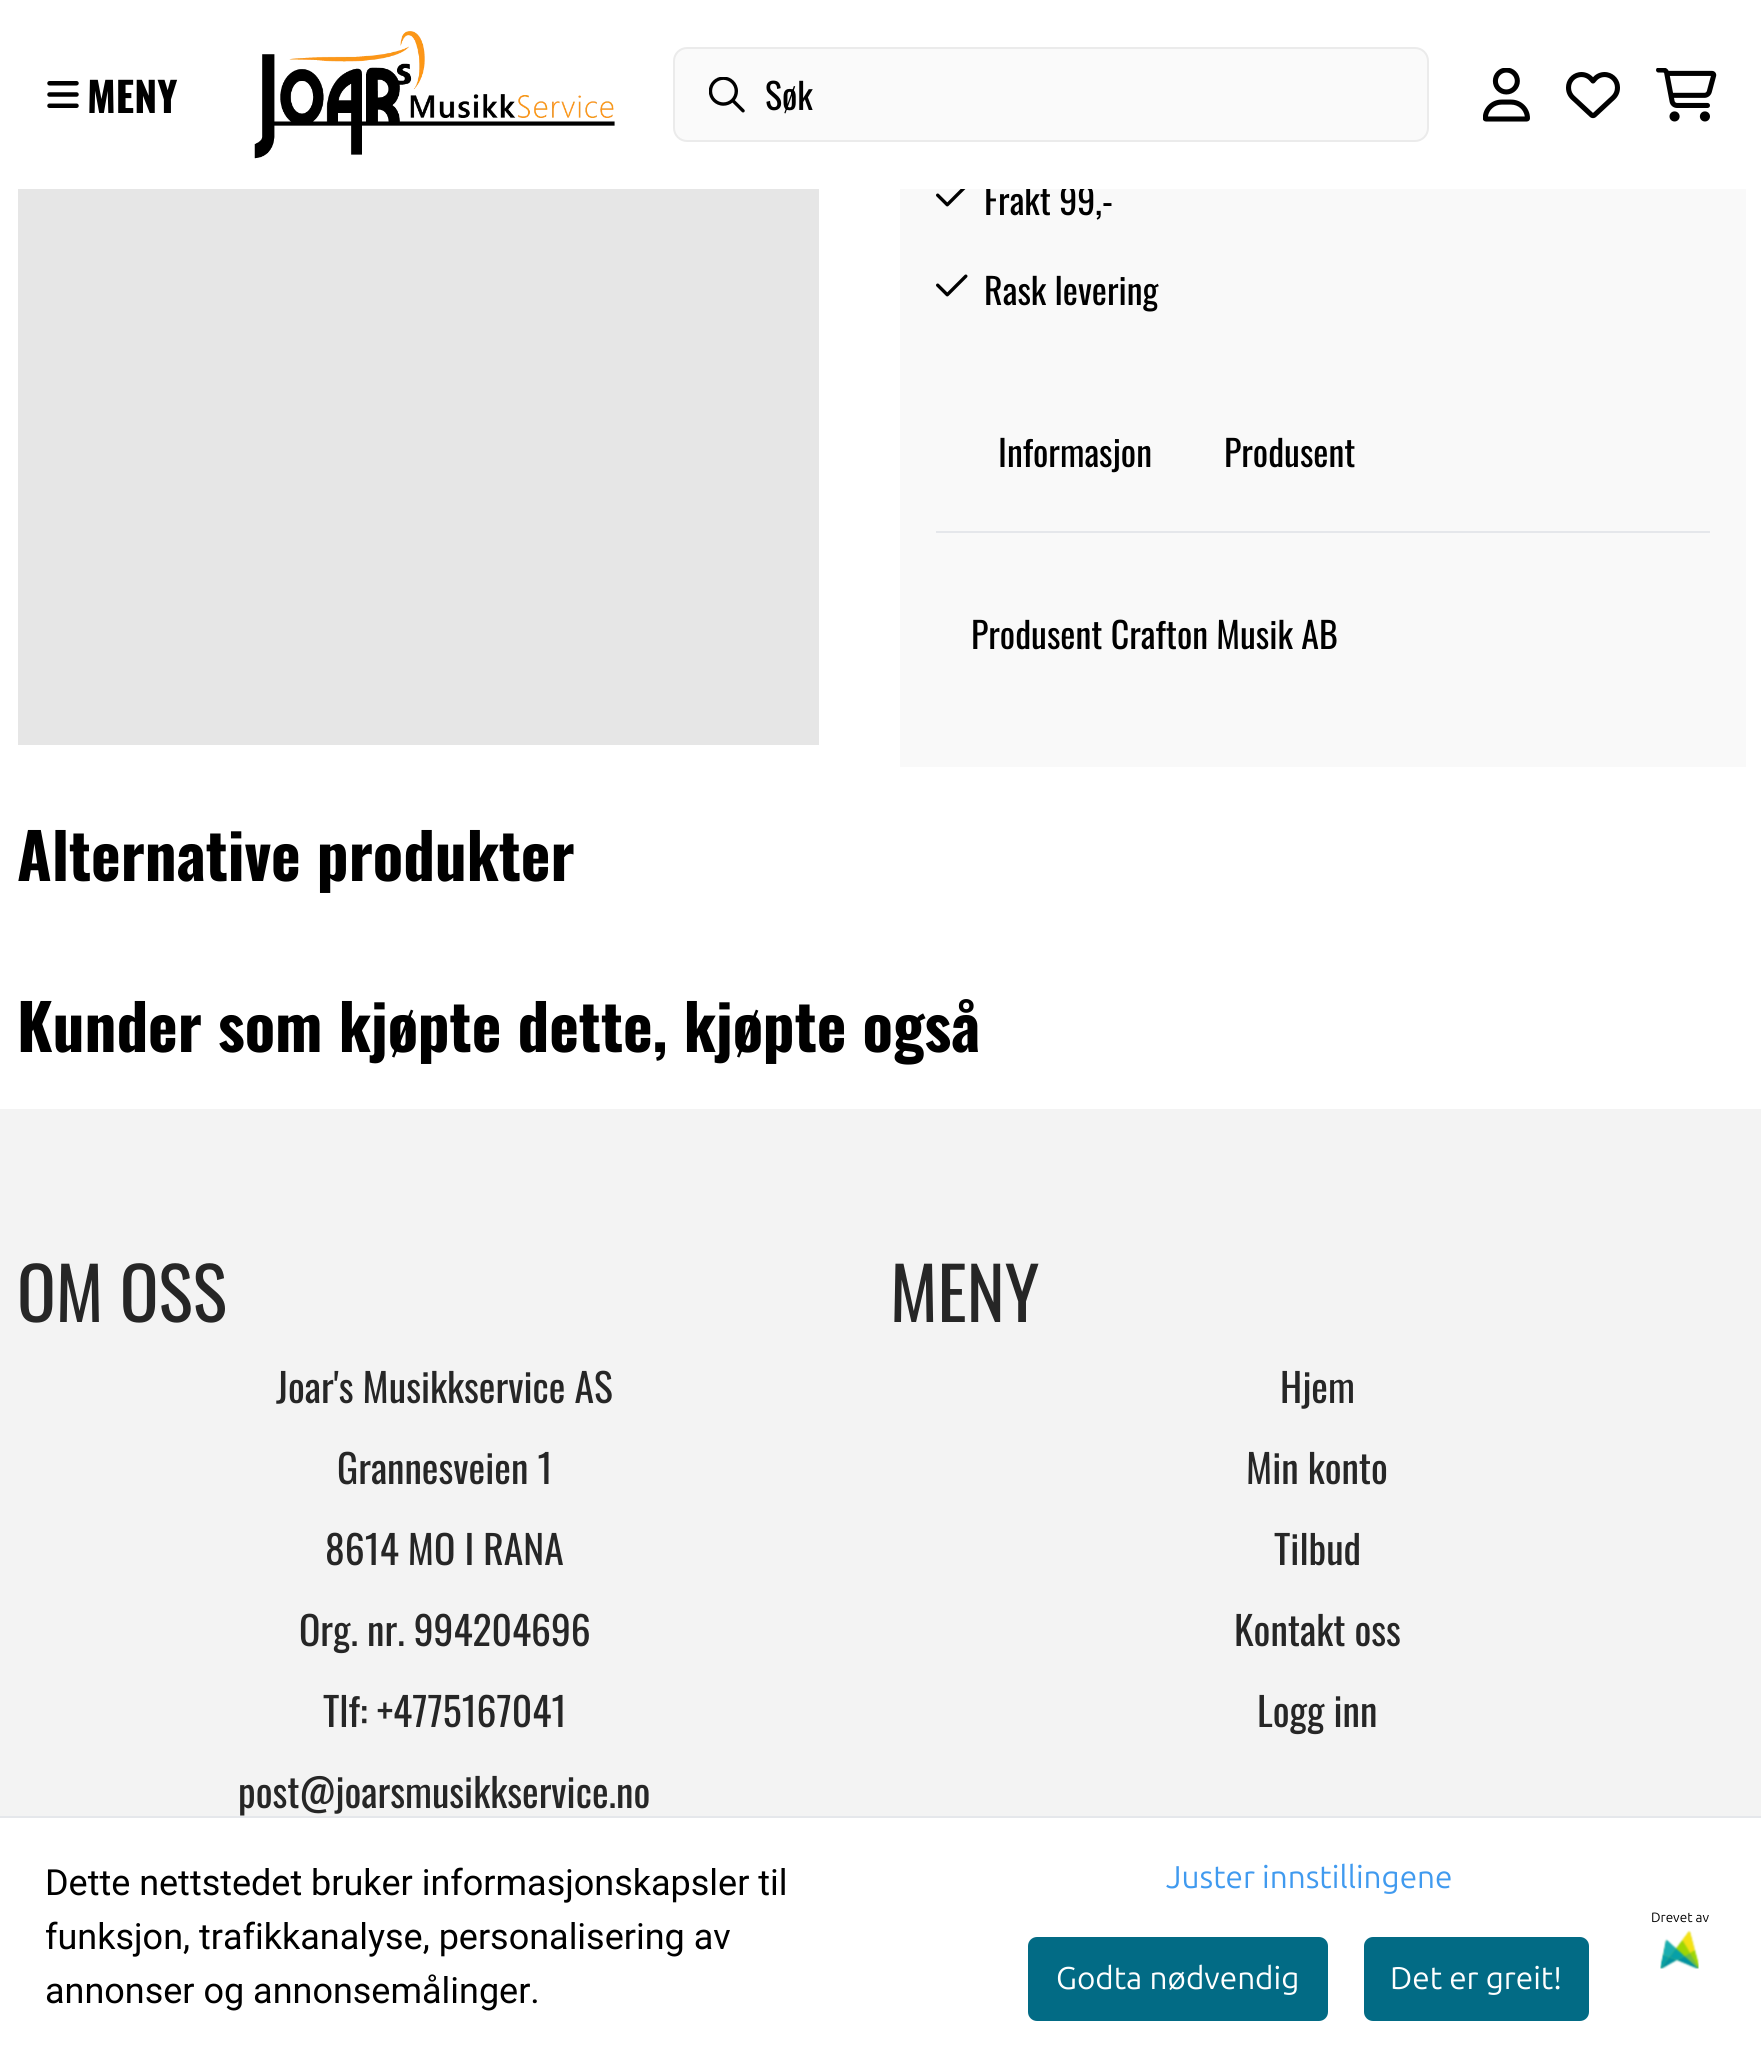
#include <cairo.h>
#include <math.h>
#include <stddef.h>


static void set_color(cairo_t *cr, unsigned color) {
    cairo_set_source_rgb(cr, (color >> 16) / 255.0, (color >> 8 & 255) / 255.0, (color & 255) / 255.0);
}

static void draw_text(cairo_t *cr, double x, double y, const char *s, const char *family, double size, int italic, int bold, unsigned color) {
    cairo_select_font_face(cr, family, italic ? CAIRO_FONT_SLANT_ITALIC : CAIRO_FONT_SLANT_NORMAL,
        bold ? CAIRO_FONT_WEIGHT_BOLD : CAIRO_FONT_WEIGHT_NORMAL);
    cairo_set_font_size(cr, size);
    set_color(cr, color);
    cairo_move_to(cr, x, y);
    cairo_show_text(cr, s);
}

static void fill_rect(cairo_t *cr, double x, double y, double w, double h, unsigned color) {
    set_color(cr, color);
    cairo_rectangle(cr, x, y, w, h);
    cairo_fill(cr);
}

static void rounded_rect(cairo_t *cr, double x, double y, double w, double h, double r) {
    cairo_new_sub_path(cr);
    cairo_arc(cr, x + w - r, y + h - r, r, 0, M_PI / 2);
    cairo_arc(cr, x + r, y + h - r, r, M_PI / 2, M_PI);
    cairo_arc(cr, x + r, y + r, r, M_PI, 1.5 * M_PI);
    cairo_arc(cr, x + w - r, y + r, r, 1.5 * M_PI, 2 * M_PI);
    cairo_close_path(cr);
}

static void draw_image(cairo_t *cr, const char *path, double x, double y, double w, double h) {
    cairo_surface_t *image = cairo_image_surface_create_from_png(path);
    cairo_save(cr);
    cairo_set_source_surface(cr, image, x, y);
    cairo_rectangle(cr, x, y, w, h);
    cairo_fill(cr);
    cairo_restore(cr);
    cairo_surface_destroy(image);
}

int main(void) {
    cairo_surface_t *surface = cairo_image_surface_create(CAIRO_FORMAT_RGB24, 1761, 2056);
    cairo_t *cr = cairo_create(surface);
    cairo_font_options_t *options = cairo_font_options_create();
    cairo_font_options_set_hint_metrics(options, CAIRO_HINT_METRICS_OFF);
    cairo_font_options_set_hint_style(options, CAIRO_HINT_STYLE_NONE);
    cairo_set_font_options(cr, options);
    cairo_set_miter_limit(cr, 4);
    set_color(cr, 0xFFFFFF);
    cairo_paint(cr);
    fill_rect(cr, 900, 189, 846, 578, 0xF9F9F9);
    draw_text(cr, 984, 215, "Frakt 99,-", "Oswald", 36, 0, 0, 0x000000);
    fill_rect(cr, 986, 185, 107, 4, 0xFFFFFF);
    draw_image(cr, "assets/img1.png", 47, 81, 32, 27);
    draw_text(cr, 87, 113, "MENY", "Oswald", 41, 0, 1, 0x000000);
    draw_image(cr, "assets/img2.png", 254, 31, 361, 128);
    set_color(cr, 0xFAFAFA);
    rounded_rect(cr, 674, 48, 754, 93, 13);
    cairo_fill_preserve(cr);
    set_color(cr, 0xEBEBEB);
    cairo_stroke(cr);
    draw_image(cr, "assets/img3.png", 709, 77, 36, 36);
    draw_text(cr, 765, 110, "Søk", "Oswald", 36, 0, 0, 0x000000);
    draw_image(cr, "assets/img4.png", 1483, 68, 47, 54);
    draw_image(cr, "assets/img5.png", 1566, 72, 54, 47);
    draw_image(cr, "assets/img6.png", 1656, 68, 61, 54);
    fill_rect(cr, 18, 189, 801, 556, 0xE6E6E6);
    draw_image(cr, "assets/img7.png", 936, 189, 30, 18);
    draw_image(cr, "assets/img8.png", 936, 274, 32, 23);
    draw_text(cr, 984, 305, "Rask levering", "Oswald", 36, 0, 0, 0x000000);
    fill_rect(cr, 936, 531, 774, 2, 0xE5E7EB);
    draw_text(cr, 998, 467, "Informasjon", "Oswald", 36, 0, 0, 0x000000);
    draw_text(cr, 1224, 467, "Produsent", "Oswald", 36, 0, 0, 0x000000);
    draw_text(cr, 971, 649, "Produsent Crafton Musik AB", "Oswald", 36, 0, 0, 0x000000);
    draw_text(cr, 17, 881, "Alternative produkter", "Oswald", 63, 0, 1, 0x000000);
    draw_text(cr, 17, 1052, "Kunder som kjøpte dette, kjøpte også", "Oswald", 63, 0, 1, 0x000000);
    fill_rect(cr, 0, 1109, 1761, 707, 0xF3F3F3);
    draw_text(cr, 17, 1322, "OM OSS", "Oswald", 72, 0, 0, 0x262626);
    draw_text(cr, 276, 1403, "Joar's Musikkservice AS", "Oswald", 39.6, 0, 0, 0x262626);
    draw_text(cr, 337, 1484, "Grannesveien 1", "Oswald", 39.6, 0, 0, 0x262626);
    draw_text(cr, 325, 1565, "8614 MO I RANA", "Oswald", 39.6, 0, 0, 0x262626);
    draw_text(cr, 299, 1646, "Org. nr. 994204696", "Oswald", 39.6, 0, 0, 0x262626);
    draw_text(cr, 323, 1727, "Tlf: +4775167041", "Oswald", 39.6, 0, 0, 0x262626);
    draw_text(cr, 238, 1808, "post@joarsmusikkservice.no", "Oswald", 39.6, 0, 0, 0x262626);
    draw_text(cr, 890, 1322, "MENY", "Oswald", 72, 0, 0, 0x262626);
    draw_text(cr, 1280, 1403, "Hjem", "Oswald", 39.6, 0, 0, 0x262626);
    draw_text(cr, 1246, 1484, "Min konto", "Oswald", 39.6, 0, 0, 0x262626);
    draw_text(cr, 1274, 1565, "Tilbud", "Oswald", 39.6, 0, 0, 0x262626);
    draw_text(cr, 1234, 1646, "Kontakt oss", "Oswald", 39.6, 0, 0, 0x262626);
    draw_text(cr, 1257, 1727, "Logg inn", "Oswald", 39.6, 0, 0, 0x262626);
    fill_rect(cr, 0, 1816, 1761, 2, 0xE5E7EB);
    draw_text(cr, 45, 1895, "Dette nettstedet bruker informasjonskapsler til", "Roboto", 36, 0, 0, 0x000000);
    draw_text(cr, 45, 1949, "funksjon, trafikkanalyse, personalisering av", "Roboto", 36, 0, 0, 0x000000);
    draw_text(cr, 45, 2003, "annonser og annonsemålinger.", "Roboto", 36, 0, 0, 0x000000);
    draw_text(cr, 1166, 1888, "Juster innstillingene", "Ubuntu", 31.5, 0, 0, 0x409AEF);
    set_color(cr, 0x026B85);
    rounded_rect(cr, 1028, 1937, 300, 84, 9);
    cairo_fill(cr);
    draw_text(cr, 1056, 1989, "Godta nødvendig", "Ubuntu", 31.5, 0, 0, 0xFFFFFF);
    set_color(cr, 0x026B85);
    rounded_rect(cr, 1364, 1937, 225, 84, 9);
    cairo_fill(cr);
    draw_text(cr, 1390, 1989, "Det er greit!", "Ubuntu", 31.5, 0, 0, 0xFFFFFF);
    draw_text(cr, 1651, 1922, "Drevet av", "Ubuntu", 13.5, 0, 0, 0x000000);
    draw_image(cr, "assets/img9.png", 1660, 1930, 39, 39);
    cairo_surface_write_to_png(surface, "output.png");
    cairo_font_options_destroy(options);
    cairo_destroy(cr);
    cairo_surface_destroy(surface);
    return 0;
}
